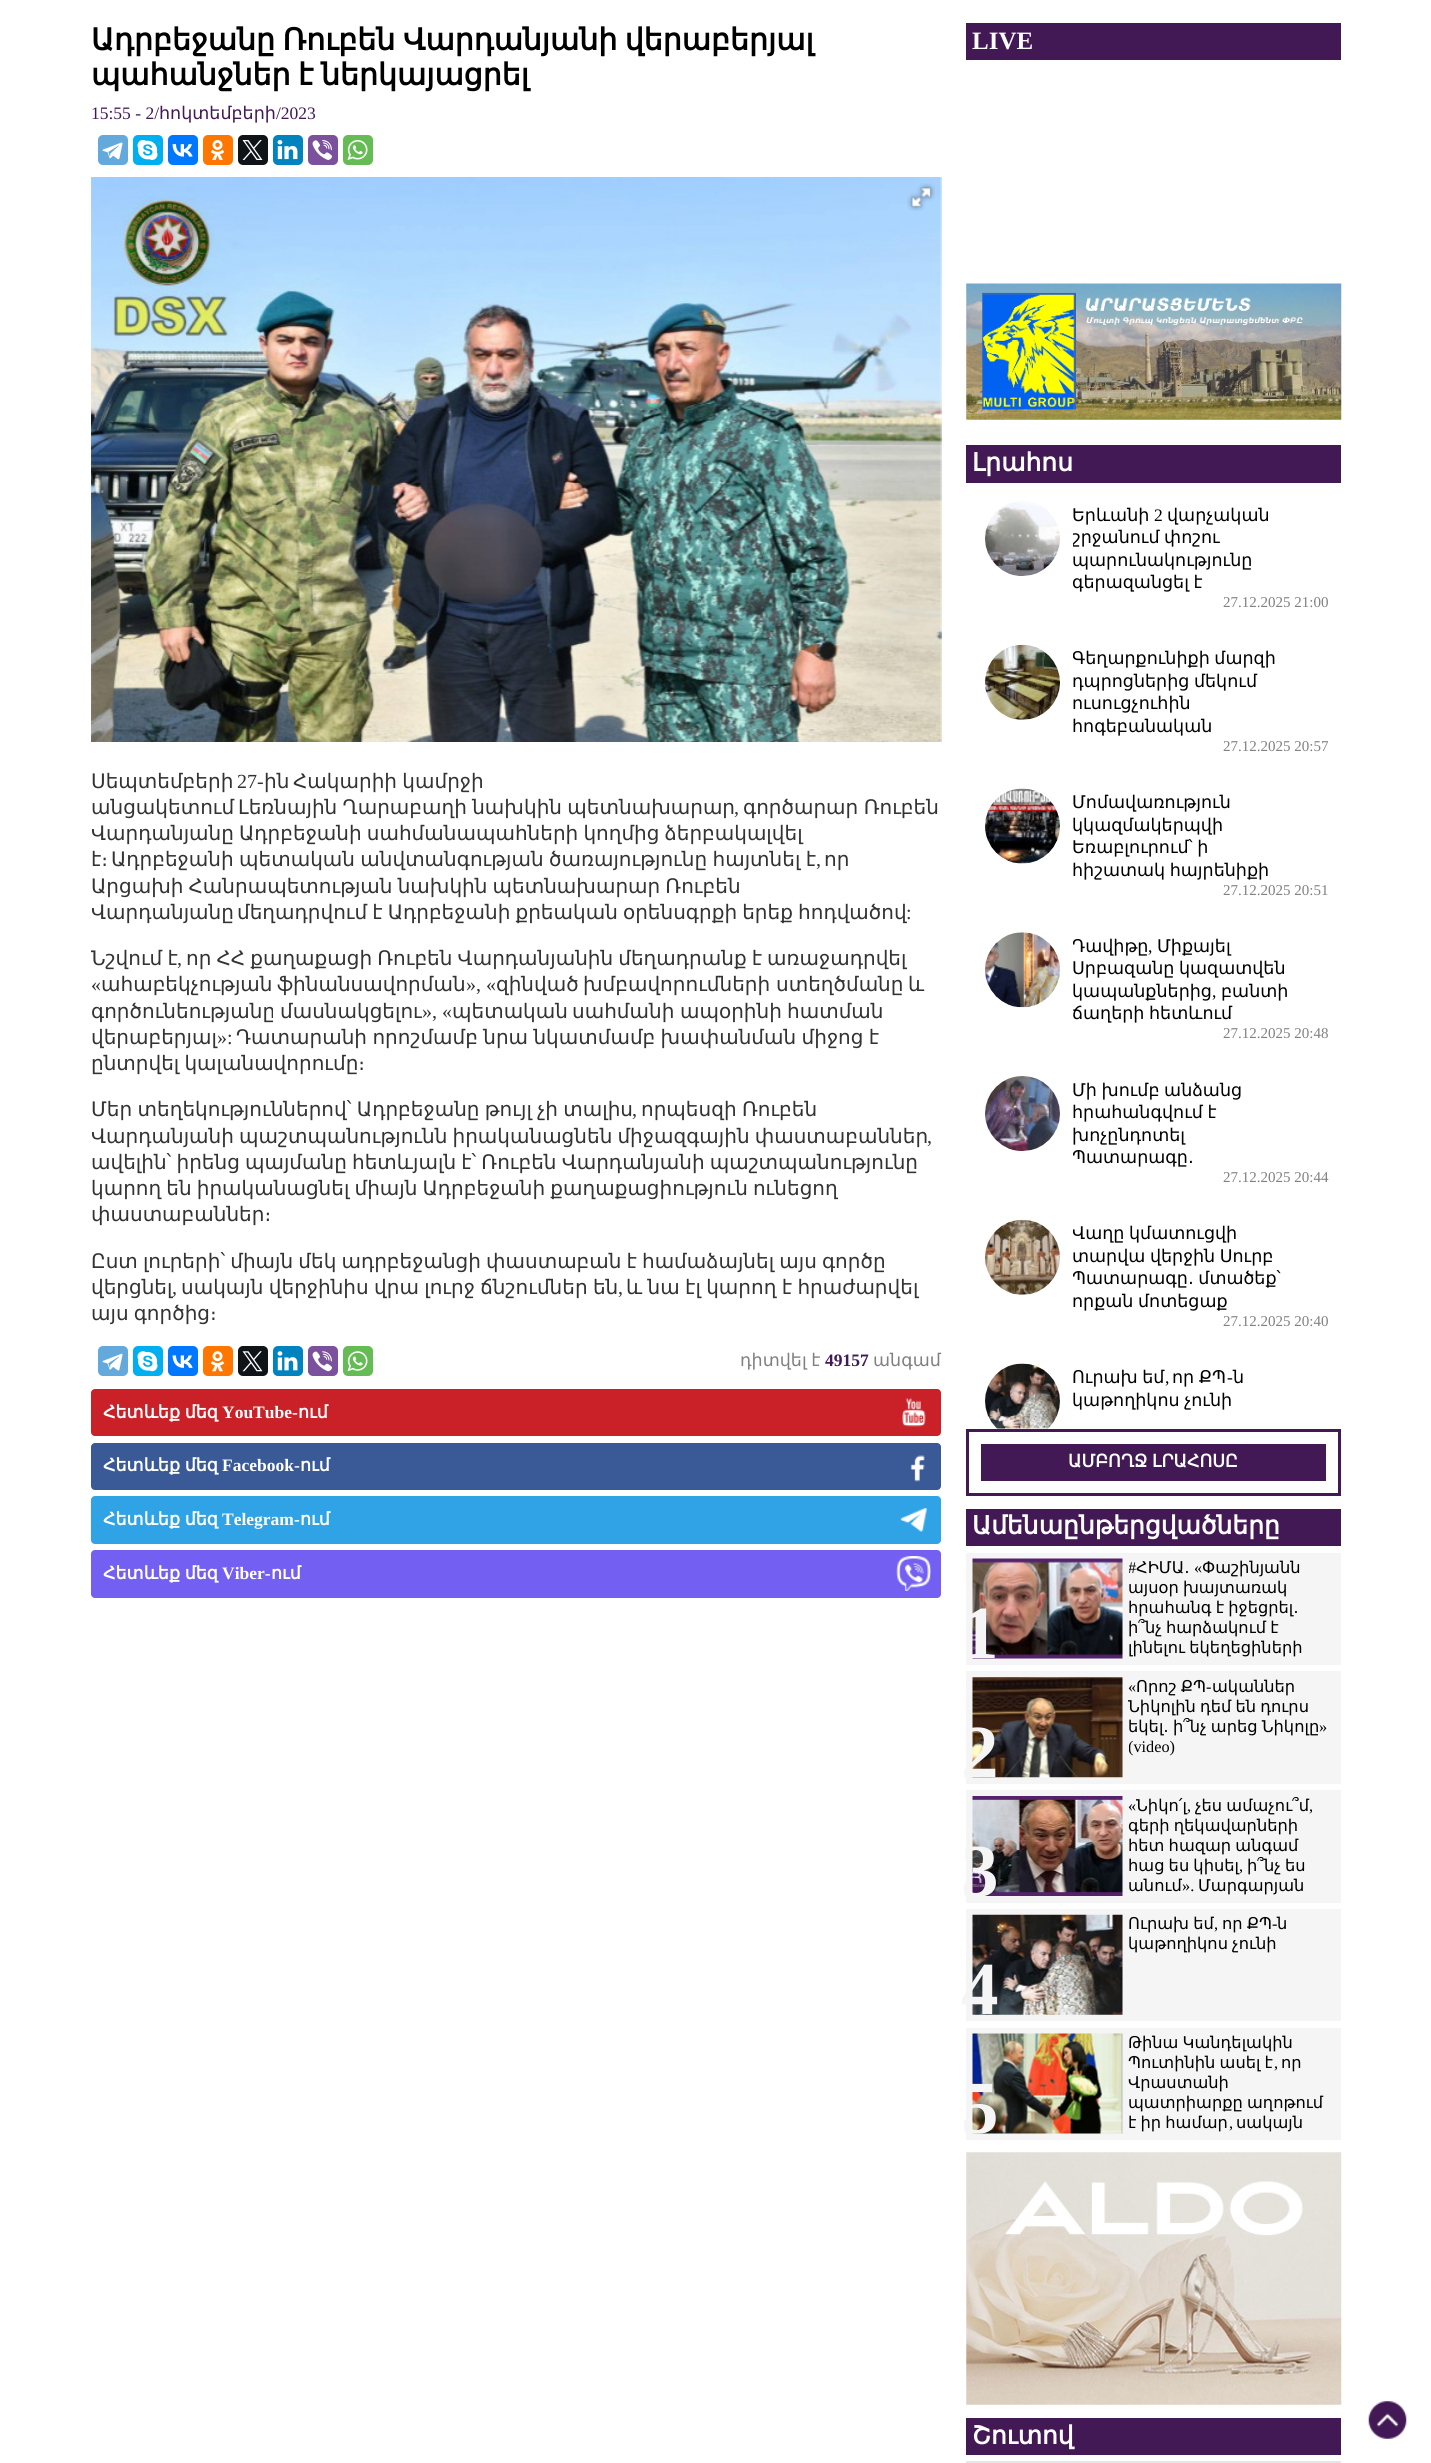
#include <cairo.h>
#include <math.h>
#include <stddef.h>


static void set_color(cairo_t *cr, unsigned color) {
    cairo_set_source_rgb(cr, (color >> 16) / 255.0, (color >> 8 & 255) / 255.0, (color & 255) / 255.0);
}

static void draw_text(cairo_t *cr, double x, double y, const char *s, const char *family, double size, int italic, int bold, unsigned color) {
    cairo_select_font_face(cr, family, italic ? CAIRO_FONT_SLANT_ITALIC : CAIRO_FONT_SLANT_NORMAL,
        bold ? CAIRO_FONT_WEIGHT_BOLD : CAIRO_FONT_WEIGHT_NORMAL);
    cairo_set_font_size(cr, size);
    set_color(cr, color);
    cairo_move_to(cr, x, y);
    cairo_show_text(cr, s);
}

static void draw_spaced(cairo_t *cr, double x, double y, const char *s, double letter, double word) {
    cairo_move_to(cr, x, y);
    while (*s) {
        char ch[5] = {0};
        int n = 0;
        do ch[n++] = *s++; while ((*s & 0xC0) == 0x80);
        cairo_show_text(cr, ch);
        cairo_rel_move_to(cr, letter + word * (*ch == ' '), 0);
    }
}

static void fill_rect(cairo_t *cr, double x, double y, double w, double h, unsigned color) {
    set_color(cr, color);
    cairo_rectangle(cr, x, y, w, h);
    cairo_fill(cr);
}

static void rounded_rect(cairo_t *cr, double x, double y, double w, double h, double r) {
    cairo_new_sub_path(cr);
    cairo_arc(cr, x + w - r, y + h - r, r, 0, M_PI / 2);
    cairo_arc(cr, x + r, y + h - r, r, M_PI / 2, M_PI);
    cairo_arc(cr, x + r, y + r, r, M_PI, 1.5 * M_PI);
    cairo_arc(cr, x + w - r, y + r, r, 1.5 * M_PI, 2 * M_PI);
    cairo_close_path(cr);
}

static void draw_image(cairo_t *cr, const char *path, double x, double y, double w, double h) {
    cairo_surface_t *image = cairo_image_surface_create_from_png(path);
    cairo_save(cr);
    cairo_set_source_surface(cr, image, x, y);
    cairo_rectangle(cr, x, y, w, h);
    cairo_fill(cr);
    cairo_restore(cr);
    cairo_surface_destroy(image);
}

int main(void) {
    cairo_surface_t *surface = cairo_image_surface_create(CAIRO_FORMAT_RGB24, 1431, 2463);
    cairo_t *cr = cairo_create(surface);
    cairo_font_options_t *options = cairo_font_options_create();
    cairo_font_options_set_hint_metrics(options, CAIRO_HINT_METRICS_OFF);
    cairo_font_options_set_hint_style(options, CAIRO_HINT_STYLE_NONE);
    cairo_set_font_options(cr, options);
    cairo_set_miter_limit(cr, 4);
    set_color(cr, 0xFFFFFF);
    cairo_paint(cr);
    cairo_select_font_face(cr, "DejaVu Sans", CAIRO_FONT_SLANT_NORMAL, CAIRO_FONT_WEIGHT_BOLD);
    cairo_set_font_size(cr, 30);
    set_color(cr, 0x000000);
    draw_spaced(cr, 91, 50, "Ադրբեջանը Ռուբեն Վարդանյանի վերաբերյալ", 0, -2);
    draw_spaced(cr, 91, 85, "պահանջներ է ներկայացրել", 0, -2);
    draw_text(cr, 91, 119, "15:55 - 2/", "Liberation Serif", 17.5, 0, 0, 0x421955);
    draw_text(cr, 159, 119, "հոկտեմբերի", "DejaVu Sans", 17.5, 0, 0, 0x421955);
    draw_text(cr, 276, 119, "/2023", "Liberation Serif", 17.5, 0, 0, 0x421955);
    set_color(cr, 0x64A9DC);
    rounded_rect(cr, 98, 135, 30, 30, 5);
    cairo_fill(cr);
    draw_image(cr, "assets/img1.png", 102, 142, 21, 18);
    set_color(cr, 0x00AFF0);
    rounded_rect(cr, 133, 135, 30, 30, 5);
    cairo_fill(cr);
    draw_image(cr, "assets/img2.png", 137, 140, 21, 20);
    set_color(cr, 0x0077FF);
    rounded_rect(cr, 168, 135, 30, 30, 5);
    cairo_fill(cr);
    draw_image(cr, "assets/img3.png", 172, 144, 21, 13);
    set_color(cr, 0xFF7700);
    rounded_rect(cr, 203, 135, 30, 30, 5);
    cairo_fill(cr);
    draw_image(cr, "assets/img4.png", 210, 140, 15, 20);
    set_color(cr, 0x0F1419);
    rounded_rect(cr, 238, 135, 30, 30, 5);
    cairo_fill(cr);
    draw_image(cr, "assets/img5.png", 242, 140, 21, 20);
    set_color(cr, 0x0083BE);
    rounded_rect(cr, 273, 135, 30, 30, 5);
    cairo_fill(cr);
    draw_image(cr, "assets/img6.png", 277, 140, 21, 20);
    set_color(cr, 0x7B519D);
    rounded_rect(cr, 308, 135, 30, 30, 5);
    cairo_fill(cr);
    draw_image(cr, "assets/img7.png", 312, 140, 20, 20);
    set_color(cr, 0x65BC54);
    rounded_rect(cr, 343, 135, 30, 30, 5);
    cairo_fill(cr);
    draw_image(cr, "assets/img8.png", 347, 140, 21, 20);
    draw_image(cr, "assets/img9.png", 91, 177, 851, 565);
    draw_image(cr, "assets/img10.png", 907, 183, 28, 28);
    draw_text(cr, 91, 788, "Սեպտեմբերի", "DejaVu Sans", 20, 0, 0, 0x333333);
    draw_text(cr, 237, 788, "27-", "Liberation Serif", 20, 0, 0, 0x333333);
    draw_text(cr, 264, 788, "ին", "DejaVu Sans", 20, 0, 0, 0x333333);
    draw_spaced(cr, 293, 788, "Հակարիի կամրջի", 0, -1);
    draw_text(cr, 91, 814, "անցակետում", "DejaVu Sans", 20, 0, 0, 0x333333);
    draw_spaced(cr, 238, 814, "Լեռնային Ղարաբաղի նախկին պետնախարար", 0, -1);
    draw_text(cr, 734, 814, ",", "Liberation Serif", 20, 0, 0, 0x333333);
    cairo_select_font_face(cr, "DejaVu Sans", CAIRO_FONT_SLANT_NORMAL, CAIRO_FONT_WEIGHT_NORMAL);
    draw_spaced(cr, 743, 814, "գործարար Ռուբեն", 0, -1);
    draw_spaced(cr, 91, 840, "Վարդանյանը Ադրբեջանի սահմանապահների կողմից ձերբակալվել", 0, -1.25);
    draw_text(cr, 91, 866, "է։", "DejaVu Sans", 20, 0, 0, 0x333333);
    draw_spaced(cr, 111, 866, "Ադրբեջանի պետական անվտանգության ծառայությունը հայտնել է", 0, -1);
    draw_text(cr, 816, 866, ",", "Liberation Serif", 20, 0, 0, 0x333333);
    draw_text(cr, 824, 866, "որ", "DejaVu Sans", 20, 0, 0, 0x333333);
    draw_spaced(cr, 91, 893, "Արցախի Հանրապետության նախկին պետնախարար Ռուբեն", 0, -1.25);
    draw_text(cr, 91, 919, "Վարդանյանը", "DejaVu Sans", 20, 0, 0, 0x333333);
    draw_spaced(cr, 237, 919, "մեղադրվում է Ադրբեջանի քրեական օրենսգրքի երեք հոդվածով", 0, -1.25);
    draw_text(cr, 906, 919, ":", "Liberation Serif", 20, 0, 0, 0x333333);
    cairo_select_font_face(cr, "DejaVu Sans", CAIRO_FONT_SLANT_NORMAL, CAIRO_FONT_WEIGHT_NORMAL);
    draw_spaced(cr, 91, 965, "Նշվում է", 0, -1.25);
    draw_text(cr, 177, 965, ",", "Liberation Serif", 20, 0, 0, 0x333333);
    cairo_select_font_face(cr, "DejaVu Sans", CAIRO_FONT_SLANT_NORMAL, CAIRO_FONT_WEIGHT_NORMAL);
    draw_spaced(cr, 186, 965, "որ ՀՀ քաղաքացի Ռուբեն Վարդանյանին մեղադրանք է առաջադրվել", 0, -1.25);
    draw_text(cr, 91, 991, "«", "Liberation Serif", 20, 0, 0, 0x333333);
    draw_text(cr, 101, 991, "ահաբեկչության", "DejaVu Sans", 20, 0, 0, 0x333333);
    draw_text(cr, 277, 991, "ֆինանսավորման", "DejaVu Sans", 20, 0, 0, 0x333333);
    draw_text(cr, 466, 991, "», «", "Liberation Serif", 20, 0, 0, 0x333333);
    draw_text(cr, 496, 991, "զինված", "DejaVu Sans", 20, 0, 0, 0x333333);
    draw_text(cr, 583, 991, "խմբավորումների", "DejaVu Sans", 20, 0, 0, 0x333333);
    draw_text(cr, 776, 991, "ստեղծմանը", "DejaVu Sans", 20, 0, 0, 0x333333);
    draw_text(cr, 908, 991, "և", "DejaVu Sans", 20, 0, 0, 0x333333);
    draw_text(cr, 91, 1018, "գործունեությանը", "DejaVu Sans", 20, 0, 0, 0x333333);
    draw_text(cr, 280, 1018, "մասնակցելու", "DejaVu Sans", 20, 0, 0, 0x333333);
    draw_text(cr, 422, 1018, "», «", "Liberation Serif", 20, 0, 0, 0x333333);
    draw_text(cr, 452, 1018, "պետական", "DejaVu Sans", 20, 0, 0, 0x333333);
    draw_text(cr, 572, 1018, "սահմանի", "DejaVu Sans", 20, 0, 0, 0x333333);
    draw_text(cr, 680, 1018, "ապօրինի", "DejaVu Sans", 20, 0, 0, 0x333333);
    draw_text(cr, 787, 1018, "հատման", "DejaVu Sans", 20, 0, 0, 0x333333);
    draw_text(cr, 91, 1044, "վերաբերյալ", "DejaVu Sans", 20, 0, 0, 0x333333);
    draw_text(cr, 217, 1044, "»:", "Liberation Serif", 20, 0, 0, 0x333333);
    cairo_select_font_face(cr, "DejaVu Sans", CAIRO_FONT_SLANT_NORMAL, CAIRO_FONT_WEIGHT_NORMAL);
    draw_spaced(cr, 236, 1044, "Դատարանի որոշմամբ նրա նկատմամբ խափանման միջոց է", 0, -1);
    draw_spaced(cr, 91, 1070, "ընտրվել կալանավորումը։", 0, -1.25);
    draw_spaced(cr, 91, 1116, "Մեր տեղեկություններով՝ Ադրբեջանը թույլ չի տալիս", 0, -1);
    draw_text(cr, 632, 1116, ",", "Liberation Serif", 20, 0, 0, 0x333333);
    cairo_select_font_face(cr, "DejaVu Sans", CAIRO_FONT_SLANT_NORMAL, CAIRO_FONT_WEIGHT_NORMAL);
    draw_spaced(cr, 641, 1116, "որպեսզի Ռուբեն", 0, -1);
    draw_spaced(cr, 91, 1143, "Վարդանյանի պաշտպանությունն իրականացնեն միջազգային փաստաբաններ", 0, -1.25);
    draw_text(cr, 927, 1143, ",", "Liberation Serif", 20, 0, 0, 0x333333);
    cairo_select_font_face(cr, "DejaVu Sans", CAIRO_FONT_SLANT_NORMAL, CAIRO_FONT_WEIGHT_NORMAL);
    draw_spaced(cr, 91, 1169, "ավելին՝ իրենց պայմանը հետևյալն է՝ Ռուբեն Վարդանյանի պաշտպանությունը", 0, -1.25);
    draw_spaced(cr, 91, 1195, "կարող են իրականացնել միայն Ադրբեջանի քաղաքացիություն ունեցող", 0, -1.25);
    draw_text(cr, 91, 1221, "փաստաբաններ։", "DejaVu Sans", 20, 0, 0, 0x333333);
    draw_spaced(cr, 91, 1268, "Ըստ լուրերի՝ միայն մեկ ադրբեջանցի փաստաբան է համաձայնել այս գործը", 0, -1.25);
    draw_text(cr, 91, 1294, "վերցնել", "DejaVu Sans", 20, 0, 0, 0x333333);
    draw_text(cr, 172, 1294, ",", "Liberation Serif", 20, 0, 0, 0x333333);
    cairo_select_font_face(cr, "DejaVu Sans", CAIRO_FONT_SLANT_NORMAL, CAIRO_FONT_WEIGHT_NORMAL);
    draw_spaced(cr, 181, 1294, "սակայն վերջինիս վրա լուրջ ճնշումներ են", 0, -1);
    draw_text(cr, 618, 1294, ",", "Liberation Serif", 20, 0, 0, 0x333333);
    cairo_select_font_face(cr, "DejaVu Sans", CAIRO_FONT_SLANT_NORMAL, CAIRO_FONT_WEIGHT_NORMAL);
    draw_spaced(cr, 626, 1294, "և նա էլ կարող է հրաժարվել", 0, -1);
    draw_spaced(cr, 91, 1320, "այս գործից։", 0, -1.25);
    set_color(cr, 0x64A9DC);
    rounded_rect(cr, 98, 1346, 30, 30, 5);
    cairo_fill(cr);
    draw_image(cr, "assets/img11.png", 102, 1353, 21, 18);
    set_color(cr, 0x00AFF0);
    rounded_rect(cr, 133, 1346, 30, 30, 5);
    cairo_fill(cr);
    draw_image(cr, "assets/img12.png", 137, 1351, 21, 21);
    set_color(cr, 0x0077FF);
    rounded_rect(cr, 168, 1346, 30, 30, 5);
    cairo_fill(cr);
    draw_image(cr, "assets/img13.png", 172, 1355, 21, 13);
    set_color(cr, 0xFF7700);
    rounded_rect(cr, 203, 1346, 30, 30, 5);
    cairo_fill(cr);
    draw_image(cr, "assets/img14.png", 210, 1351, 15, 21);
    set_color(cr, 0x0F1419);
    rounded_rect(cr, 238, 1346, 30, 30, 5);
    cairo_fill(cr);
    draw_image(cr, "assets/img15.png", 242, 1351, 21, 21);
    set_color(cr, 0x0083BE);
    rounded_rect(cr, 273, 1346, 30, 30, 5);
    cairo_fill(cr);
    draw_image(cr, "assets/img16.png", 277, 1351, 21, 20);
    set_color(cr, 0x7B519D);
    rounded_rect(cr, 308, 1346, 30, 30, 5);
    cairo_fill(cr);
    draw_image(cr, "assets/img17.png", 312, 1351, 20, 21);
    set_color(cr, 0x65BC54);
    rounded_rect(cr, 343, 1346, 30, 30, 5);
    cairo_fill(cr);
    draw_image(cr, "assets/img18.png", 347, 1351, 21, 21);
    cairo_set_font_size(cr, 17.5);
    set_color(cr, 0x808080);
    draw_spaced(cr, 740, 1366, "դիտվել է", 0, -1);
    draw_text(cr, 825, 1366, "49157", "Liberation Serif", 17.5, 0, 1, 0x421955);
    draw_text(cr, 873, 1366, "անգամ", "DejaVu Sans", 17.5, 0, 0, 0x808080);
    set_color(cr, 0xCA2128);
    rounded_rect(cr, 91, 1389, 850, 47, 4);
    cairo_fill(cr);
    cairo_select_font_face(cr, "DejaVu Sans", CAIRO_FONT_SLANT_NORMAL, CAIRO_FONT_WEIGHT_BOLD);
    set_color(cr, 0xFFFFFF);
    draw_spaced(cr, 103, 1418, "Հետևեք մեզ", 0, -1);
    draw_text(cr, 222, 1418, "YouTube-", "Liberation Serif", 17.5, 0, 1, 0xFFFFFF);
    draw_text(cr, 298, 1418, "ում", "DejaVu Sans", 17.5, 0, 1, 0xFFFFFF);
    draw_image(cr, "assets/img19.png", 902, 1398, 24, 29);
    set_color(cr, 0x3A5997);
    rounded_rect(cr, 91, 1443, 850, 47, 4);
    cairo_fill(cr);
    set_color(cr, 0xFFFFFF);
    draw_spaced(cr, 103, 1471, "Հետևեք մեզ", 0, -1);
    draw_text(cr, 222, 1471, "Facebook-", "Liberation Serif", 17.5, 0, 1, 0xFFFFFF);
    draw_text(cr, 300, 1471, "ում", "DejaVu Sans", 17.5, 0, 1, 0xFFFFFF);
    draw_image(cr, "assets/img20.png", 910, 1455, 15, 27);
    set_color(cr, 0x30A3E6);
    rounded_rect(cr, 91, 1496, 850, 48, 4);
    cairo_fill(cr);
    set_color(cr, 0xFFFFFF);
    draw_spaced(cr, 103, 1525, "Հետևեք մեզ", 0, -1);
    draw_text(cr, 222, 1525, "Telegram-", "Liberation Serif", 17.5, 0, 1, 0xFFFFFF);
    draw_text(cr, 300, 1525, "ում", "DejaVu Sans", 17.5, 0, 1, 0xFFFFFF);
    draw_image(cr, "assets/img21.png", 900, 1508, 27, 24);
    set_color(cr, 0x7360F2);
    rounded_rect(cr, 91, 1550, 850, 48, 4);
    cairo_fill(cr);
    set_color(cr, 0xFFFFFF);
    draw_spaced(cr, 103, 1579, "Հետևեք մեզ", 0, -1);
    draw_text(cr, 222, 1579, "Viber-", "Liberation Serif", 17.5, 0, 1, 0xFFFFFF);
    draw_text(cr, 271, 1579, "ում", "DejaVu Sans", 17.5, 0, 1, 0xFFFFFF);
    draw_image(cr, "assets/img22.png", 896, 1556, 35, 35);
    fill_rect(cr, 966, 23, 375, 37, 0x421955);
    draw_text(cr, 972, 49, "LIVE", "Liberation Serif", 25, 0, 1, 0xFFFFFF);
    draw_image(cr, "assets/img23.png", 966, 283, 376, 137);
    fill_rect(cr, 966, 445, 375, 38, 0x421955);
    draw_text(cr, 972, 471, "Լրահոս", "DejaVu Sans", 25, 0, 1, 0xFFFFFF);
    draw_image(cr, "assets/img24.png", 985, 501, 75, 75);
    draw_text(cr, 1072, 521, "Երևանի", "DejaVu Sans", 17.5, 0, 0, 0x000000);
    draw_text(cr, 1154, 521, "2", "Liberation Serif", 17.5, 0, 0, 0x000000);
    draw_text(cr, 1167, 521, "վարչական", "DejaVu Sans", 17.5, 0, 0, 0x000000);
    cairo_save(cr);
    cairo_rectangle(cr, 1073, 505, 250, 90);
    cairo_clip(cr);
    draw_spaced(cr, 1072, 543, "շրջանում փոշու", 0, -1);
    cairo_restore(cr);
    draw_text(cr, 1072, 566, "պարունակությունը", "DejaVu Sans", 17.5, 0, 0, 0x000000);
    draw_spaced(cr, 1072, 588, "գերազանցել է", 0, -1);
    draw_text(cr, 1223, 607, "27.12.2025 21:00", "Liberation Serif", 15, 0, 0, 0x808080);
    draw_image(cr, "assets/img25.png", 985, 644, 75, 76);
    cairo_save(cr);
    cairo_rectangle(cr, 1073, 649, 250, 90);
    cairo_clip(cr);
    cairo_select_font_face(cr, "DejaVu Sans", CAIRO_FONT_SLANT_NORMAL, CAIRO_FONT_WEIGHT_NORMAL);
    cairo_set_font_size(cr, 17.5);
    set_color(cr, 0x000000);
    draw_spaced(cr, 1072, 664, "Գեղարքունիքի մարզի", 0, -1);
    cairo_restore(cr);
    cairo_select_font_face(cr, "DejaVu Sans", CAIRO_FONT_SLANT_NORMAL, CAIRO_FONT_WEIGHT_NORMAL);
    cairo_set_font_size(cr, 17.5);
    set_color(cr, 0x000000);
    draw_spaced(cr, 1072, 687, "դպրոցներից մեկում", 0, -1);
    draw_text(cr, 1072, 709, "ուսուցչուհին", "DejaVu Sans", 17.5, 0, 0, 0x000000);
    draw_text(cr, 1072, 732, "հոգեբանական", "DejaVu Sans", 17.5, 0, 0, 0x000000);
    draw_text(cr, 1223, 751, "27.12.2025 20:57", "Liberation Serif", 15, 0, 0, 0x808080);
    draw_image(cr, "assets/img26.png", 985, 788, 75, 76);
    draw_text(cr, 1072, 808, "Մոմավառություն", "DejaVu Sans", 17.5, 0, 0, 0x000000);
    draw_text(cr, 1072, 831, "կկազմակերպվի", "DejaVu Sans", 17.5, 0, 0, 0x000000);
    draw_spaced(cr, 1072, 853, "Եռաբլուրում՝ ի", 0, -1);
    draw_spaced(cr, 1072, 876, "հիշատակ հայրենիքի", 0, -1);
    draw_text(cr, 1223, 895, "27.12.2025 20:51", "Liberation Serif", 15, 0, 0, 0x808080);
    draw_image(cr, "assets/img27.png", 985, 932, 75, 76);
    cairo_save(cr);
    cairo_rectangle(cr, 1073, 936, 250, 90);
    cairo_clip(cr);
    draw_text(cr, 1072, 952, "Դավիթը", "DejaVu Sans", 17.5, 0, 0, 0x000000);
    cairo_restore(cr);
    draw_text(cr, 1148, 952, ",", "Liberation Serif", 17.5, 0, 0, 0x000000);
    draw_text(cr, 1157, 952, "Միքայել", "DejaVu Sans", 17.5, 0, 0, 0x000000);
    draw_spaced(cr, 1072, 974, "Սրբազանը կազատվեն", 0, -1);
    draw_text(cr, 1072, 997, "կապանքներից", "DejaVu Sans", 17.5, 0, 0, 0x000000);
    draw_text(cr, 1212, 997, ",", "Liberation Serif", 17.5, 0, 0, 0x000000);
    draw_text(cr, 1221, 997, "բանտի", "DejaVu Sans", 17.5, 0, 0, 0x000000);
    draw_spaced(cr, 1072, 1019, "ճաղերի հետևում", 0, -1);
    draw_text(cr, 1223, 1038, "27.12.2025 20:48", "Liberation Serif", 15, 0, 0, 0x808080);
    draw_image(cr, "assets/img28.png", 985, 1076, 75, 75);
    cairo_select_font_face(cr, "DejaVu Sans", CAIRO_FONT_SLANT_NORMAL, CAIRO_FONT_WEIGHT_NORMAL);
    cairo_set_font_size(cr, 17.5);
    set_color(cr, 0x000000);
    draw_spaced(cr, 1072, 1096, "Մի խումբ անձանց", 0, -1);
    draw_spaced(cr, 1072, 1118, "հրահանգվում է", 0, -1);
    draw_text(cr, 1072, 1141, "խոչընդոտել", "DejaVu Sans", 17.5, 0, 0, 0x000000);
    cairo_save(cr);
    cairo_rectangle(cr, 1073, 1080, 250, 90);
    cairo_clip(cr);
    draw_text(cr, 1072, 1163, "Պատարագը․", "DejaVu Sans", 17.5, 0, 0, 0x000000);
    cairo_restore(cr);
    draw_text(cr, 1223, 1182, "27.12.2025 20:44", "Liberation Serif", 15, 0, 0, 0x808080);
    draw_image(cr, "assets/img29.png", 985, 1219, 75, 76);
    cairo_save(cr);
    cairo_rectangle(cr, 1073, 1224, 250, 90);
    cairo_clip(cr);
    cairo_select_font_face(cr, "DejaVu Sans", CAIRO_FONT_SLANT_NORMAL, CAIRO_FONT_WEIGHT_NORMAL);
    cairo_set_font_size(cr, 17.5);
    set_color(cr, 0x000000);
    draw_spaced(cr, 1072, 1239, "Վաղը կմատուցվի", 0, -1);
    cairo_restore(cr);
    cairo_select_font_face(cr, "DejaVu Sans", CAIRO_FONT_SLANT_NORMAL, CAIRO_FONT_WEIGHT_NORMAL);
    cairo_set_font_size(cr, 17.5);
    set_color(cr, 0x000000);
    draw_spaced(cr, 1072, 1262, "տարվա վերջին Սուրբ", 0, -1);
    cairo_save(cr);
    cairo_rectangle(cr, 1073, 1224, 250, 90);
    cairo_clip(cr);
    draw_spaced(cr, 1072, 1284, "Պատարագը․ մտածեք՝", 0, -1);
    cairo_restore(cr);
    draw_spaced(cr, 1072, 1307, "որքան մոտեցաք", 0, -1);
    draw_text(cr, 1223, 1326, "27.12.2025 20:40", "Liberation Serif", 15, 0, 0, 0x808080);
    draw_image(cr, "assets/img30.png", 985, 1363, 75, 66);
    cairo_select_font_face(cr, "DejaVu Sans", CAIRO_FONT_SLANT_NORMAL, CAIRO_FONT_WEIGHT_NORMAL);
    cairo_set_font_size(cr, 17.5);
    set_color(cr, 0x000000);
    draw_spaced(cr, 1072, 1383, "Ուրախ եմ", 0, -1);
    draw_spaced(cr, 1172, 1383, "որ ՔՊ", 0, -1);
    draw_text(cr, 1227, 1383, "-", "Liberation Serif", 17.5, 0, 0, 0x000000);
    draw_text(cr, 1233, 1383, "ն", "DejaVu Sans", 17.5, 0, 0, 0x000000);
    draw_text(cr, 1165, 1383, ",", "Liberation Serif", 17.5, 0, 0, 0x000000);
    cairo_select_font_face(cr, "DejaVu Sans", CAIRO_FONT_SLANT_NORMAL, CAIRO_FONT_WEIGHT_NORMAL);
    draw_spaced(cr, 1072, 1406, "կաթողիկոս չունի", 0, -1);
    cairo_rectangle(cr, 967.5, 1430.5, 372, 64);
    set_color(cr, 0x421955);
    cairo_set_line_width(cr, 3);
    cairo_stroke(cr);
    fill_rect(cr, 981, 1444, 345, 37, 0x421955);
    cairo_select_font_face(cr, "DejaVu Sans", CAIRO_FONT_SLANT_NORMAL, CAIRO_FONT_WEIGHT_BOLD);
    set_color(cr, 0xFFFFFF);
    draw_spaced(cr, 1068, 1467, "ԱՄԲՈՂՋ ԼՐԱՀՈՍԸ", 0, -1);
    fill_rect(cr, 966, 1509, 375, 37, 0x421955);
    draw_text(cr, 972, 1534, "Ամենաընթերցվածները", "DejaVu Sans", 25, 0, 1, 0xFFFFFF);
    fill_rect(cr, 966, 1553, 375, 112, 0xF5F5F5);
    draw_image(cr, "assets/img31.png", 972, 1558, 151, 101);
    cairo_save(cr);
    cairo_rectangle(cr, 1129, 1559, 206, 100);
    cairo_clip(cr);
    draw_text(cr, 1128, 1573, "#", "Liberation Serif", 16.25, 0, 0, 0x000000);
    cairo_restore(cr);
    draw_text(cr, 1136, 1573, "ՀԻՄԱ․", "DejaVu Sans", 16.25, 0, 0, 0x000000);
    draw_text(cr, 1194, 1573, "«", "Liberation Serif", 16.25, 0, 0, 0x000000);
    draw_text(cr, 1202, 1573, "Փաշինյանն", "DejaVu Sans", 16.25, 0, 0, 0x000000);
    draw_spaced(cr, 1128, 1593, "այսօր խայտառակ", 0, -1);
    draw_spaced(cr, 1128, 1613, "հրահանգ է իջեցրել․", 0, -1);
    draw_spaced(cr, 1128, 1633, "ի՞նչ հարձակում է", 0, -1);
    draw_spaced(cr, 1128, 1653, "լինելու եկեղեցիների", 0, -1);
    draw_text(cr, 961, 1658, "1", "Liberation Serif", 75, 0, 1, 0xF5F5F5);
    fill_rect(cr, 966, 1671, 375, 113, 0xF5F5F5);
    draw_image(cr, "assets/img32.png", 972, 1677, 151, 101);
    draw_text(cr, 1128, 1692, "«", "Liberation Serif", 16.25, 0, 0, 0x000000);
    cairo_select_font_face(cr, "DejaVu Sans", CAIRO_FONT_SLANT_NORMAL, CAIRO_FONT_WEIGHT_NORMAL);
    draw_spaced(cr, 1136, 1692, "Որոշ ՔՊ", 0, -1);
    draw_text(cr, 1206, 1692, "-", "Liberation Serif", 16.25, 0, 0, 0x000000);
    draw_text(cr, 1212, 1692, "ականներ", "DejaVu Sans", 16.25, 0, 0, 0x000000);
    draw_spaced(cr, 1128, 1712, "Նիկոլին դեմ են դուրս", 0, -1);
    draw_spaced(cr, 1128, 1732, "եկել․ ի՞նչ արեց Նիկոլը", 0, -1);
    draw_text(cr, 1319, 1732, "»", "Liberation Serif", 16.25, 0, 0, 0x000000);
    cairo_save(cr);
    cairo_rectangle(cr, 1129, 1678, 206, 100);
    cairo_clip(cr);
    draw_text(cr, 1128, 1752, "(video)", "Liberation Serif", 16.25, 0, 0, 0x000000);
    cairo_restore(cr);
    draw_text(cr, 961, 1777, "2", "Liberation Serif", 75, 0, 1, 0xF5F5F5);
    fill_rect(cr, 966, 1790, 375, 113, 0xF5F5F5);
    draw_image(cr, "assets/img33.png", 972, 1796, 151, 100);
    draw_text(cr, 1128, 1811, "«", "Liberation Serif", 16.25, 0, 0, 0x000000);
    draw_text(cr, 1136, 1811, "Նիկո՛լ", "DejaVu Sans", 16.25, 0, 0, 0x000000);
    draw_spaced(cr, 1195, 1811, "չես ամաչու՞մ", 0, -1);
    draw_text(cr, 1187, 1811, ",", "Liberation Serif", 16.25, 0, 0, 0x000000);
    draw_text(cr, 1309, 1811, ",", "Liberation Serif", 16.25, 0, 0, 0x000000);
    cairo_select_font_face(cr, "DejaVu Sans", CAIRO_FONT_SLANT_NORMAL, CAIRO_FONT_WEIGHT_NORMAL);
    draw_spaced(cr, 1128, 1831, "գերի ղեկավարների", 0, -1);
    draw_spaced(cr, 1128, 1851, "հետ հազար անգամ", 0, -1);
    draw_spaced(cr, 1128, 1871, "հաց ես կիսել", 0, -1);
    draw_text(cr, 1239, 1871, ",", "Liberation Serif", 16.25, 0, 0, 0x000000);
    cairo_select_font_face(cr, "DejaVu Sans", CAIRO_FONT_SLANT_NORMAL, CAIRO_FONT_WEIGHT_NORMAL);
    draw_spaced(cr, 1247, 1871, "ի՞նչ ես", 0, -1);
    draw_text(cr, 1128, 1891, "անում", "DejaVu Sans", 16.25, 0, 0, 0x000000);
    draw_text(cr, 1182, 1891, "».", "Liberation Serif", 16.25, 0, 0, 0x000000);
    draw_text(cr, 1198, 1891, "Մարգարյան", "DejaVu Sans", 16.25, 0, 0, 0x000000);
    draw_text(cr, 961, 1896, "3", "Liberation Serif", 75, 0, 1, 0xF5F5F5);
    fill_rect(cr, 966, 1909, 375, 112, 0xF5F5F5);
    draw_image(cr, "assets/img34.png", 972, 1914, 151, 101);
    cairo_select_font_face(cr, "DejaVu Sans", CAIRO_FONT_SLANT_NORMAL, CAIRO_FONT_WEIGHT_NORMAL);
    cairo_set_font_size(cr, 16.25);
    set_color(cr, 0x000000);
    draw_spaced(cr, 1128, 1929, "Ուրախ եմ", 0, -1);
    draw_spaced(cr, 1222, 1929, "որ ՔՊ", 0, -1);
    draw_text(cr, 1272, 1929, "-", "Liberation Serif", 16.25, 0, 0, 0x000000);
    draw_text(cr, 1277, 1929, "ն", "DejaVu Sans", 16.25, 0, 0, 0x000000);
    draw_text(cr, 1214, 1929, ",", "Liberation Serif", 16.25, 0, 0, 0x000000);
    cairo_select_font_face(cr, "DejaVu Sans", CAIRO_FONT_SLANT_NORMAL, CAIRO_FONT_WEIGHT_NORMAL);
    draw_spaced(cr, 1128, 1949, "կաթողիկոս չունի", 0, -1);
    draw_text(cr, 961, 2014, "4", "Liberation Serif", 75, 0, 1, 0xF5F5F5);
    fill_rect(cr, 966, 2028, 375, 112, 0xF5F5F5);
    draw_image(cr, "assets/img35.png", 972, 2033, 151, 101);
    cairo_select_font_face(cr, "DejaVu Sans", CAIRO_FONT_SLANT_NORMAL, CAIRO_FONT_WEIGHT_NORMAL);
    cairo_set_font_size(cr, 16.25);
    set_color(cr, 0x000000);
    draw_spaced(cr, 1128, 2048, "Թինա Կանդելակին", 0, -1);
    draw_spaced(cr, 1128, 2068, "Պուտինին ասել է", 0, -1);
    draw_text(cr, 1274, 2068, ",", "Liberation Serif", 16.25, 0, 0, 0x000000);
    draw_text(cr, 1281, 2068, "որ", "DejaVu Sans", 16.25, 0, 0, 0x000000);
    draw_text(cr, 1128, 2088, "Վրաստանի", "DejaVu Sans", 16.25, 0, 0, 0x000000);
    draw_spaced(cr, 1128, 2108, "պատրիարքը աղոթում", 0, -1);
    draw_spaced(cr, 1128, 2128, "է իր համար", 0, -1);
    draw_text(cr, 1229, 2128, ",", "Liberation Serif", 16.25, 0, 0, 0x000000);
    draw_text(cr, 1236, 2128, "սակայն", "DejaVu Sans", 16.25, 0, 0, 0x000000);
    draw_text(cr, 961, 2133, "5", "Liberation Serif", 75, 0, 1, 0xF5F5F5);
    draw_image(cr, "assets/img36.png", 966, 2152, 376, 253);
    fill_rect(cr, 966, 2418, 375, 37, 0x421955);
    draw_text(cr, 972, 2444, "Շուտով", "DejaVu Sans", 25, 0, 1, 0xFFFFFF);
    fill_rect(cr, 966, 2461, 375, 2, 0xE6E6E6);
    draw_image(cr, "assets/img37.png", 1368, 2401, 39, 38);
    cairo_surface_write_to_png(surface, "output.png");
    cairo_font_options_destroy(options);
    cairo_destroy(cr);
    cairo_surface_destroy(surface);
    return 0;
}
